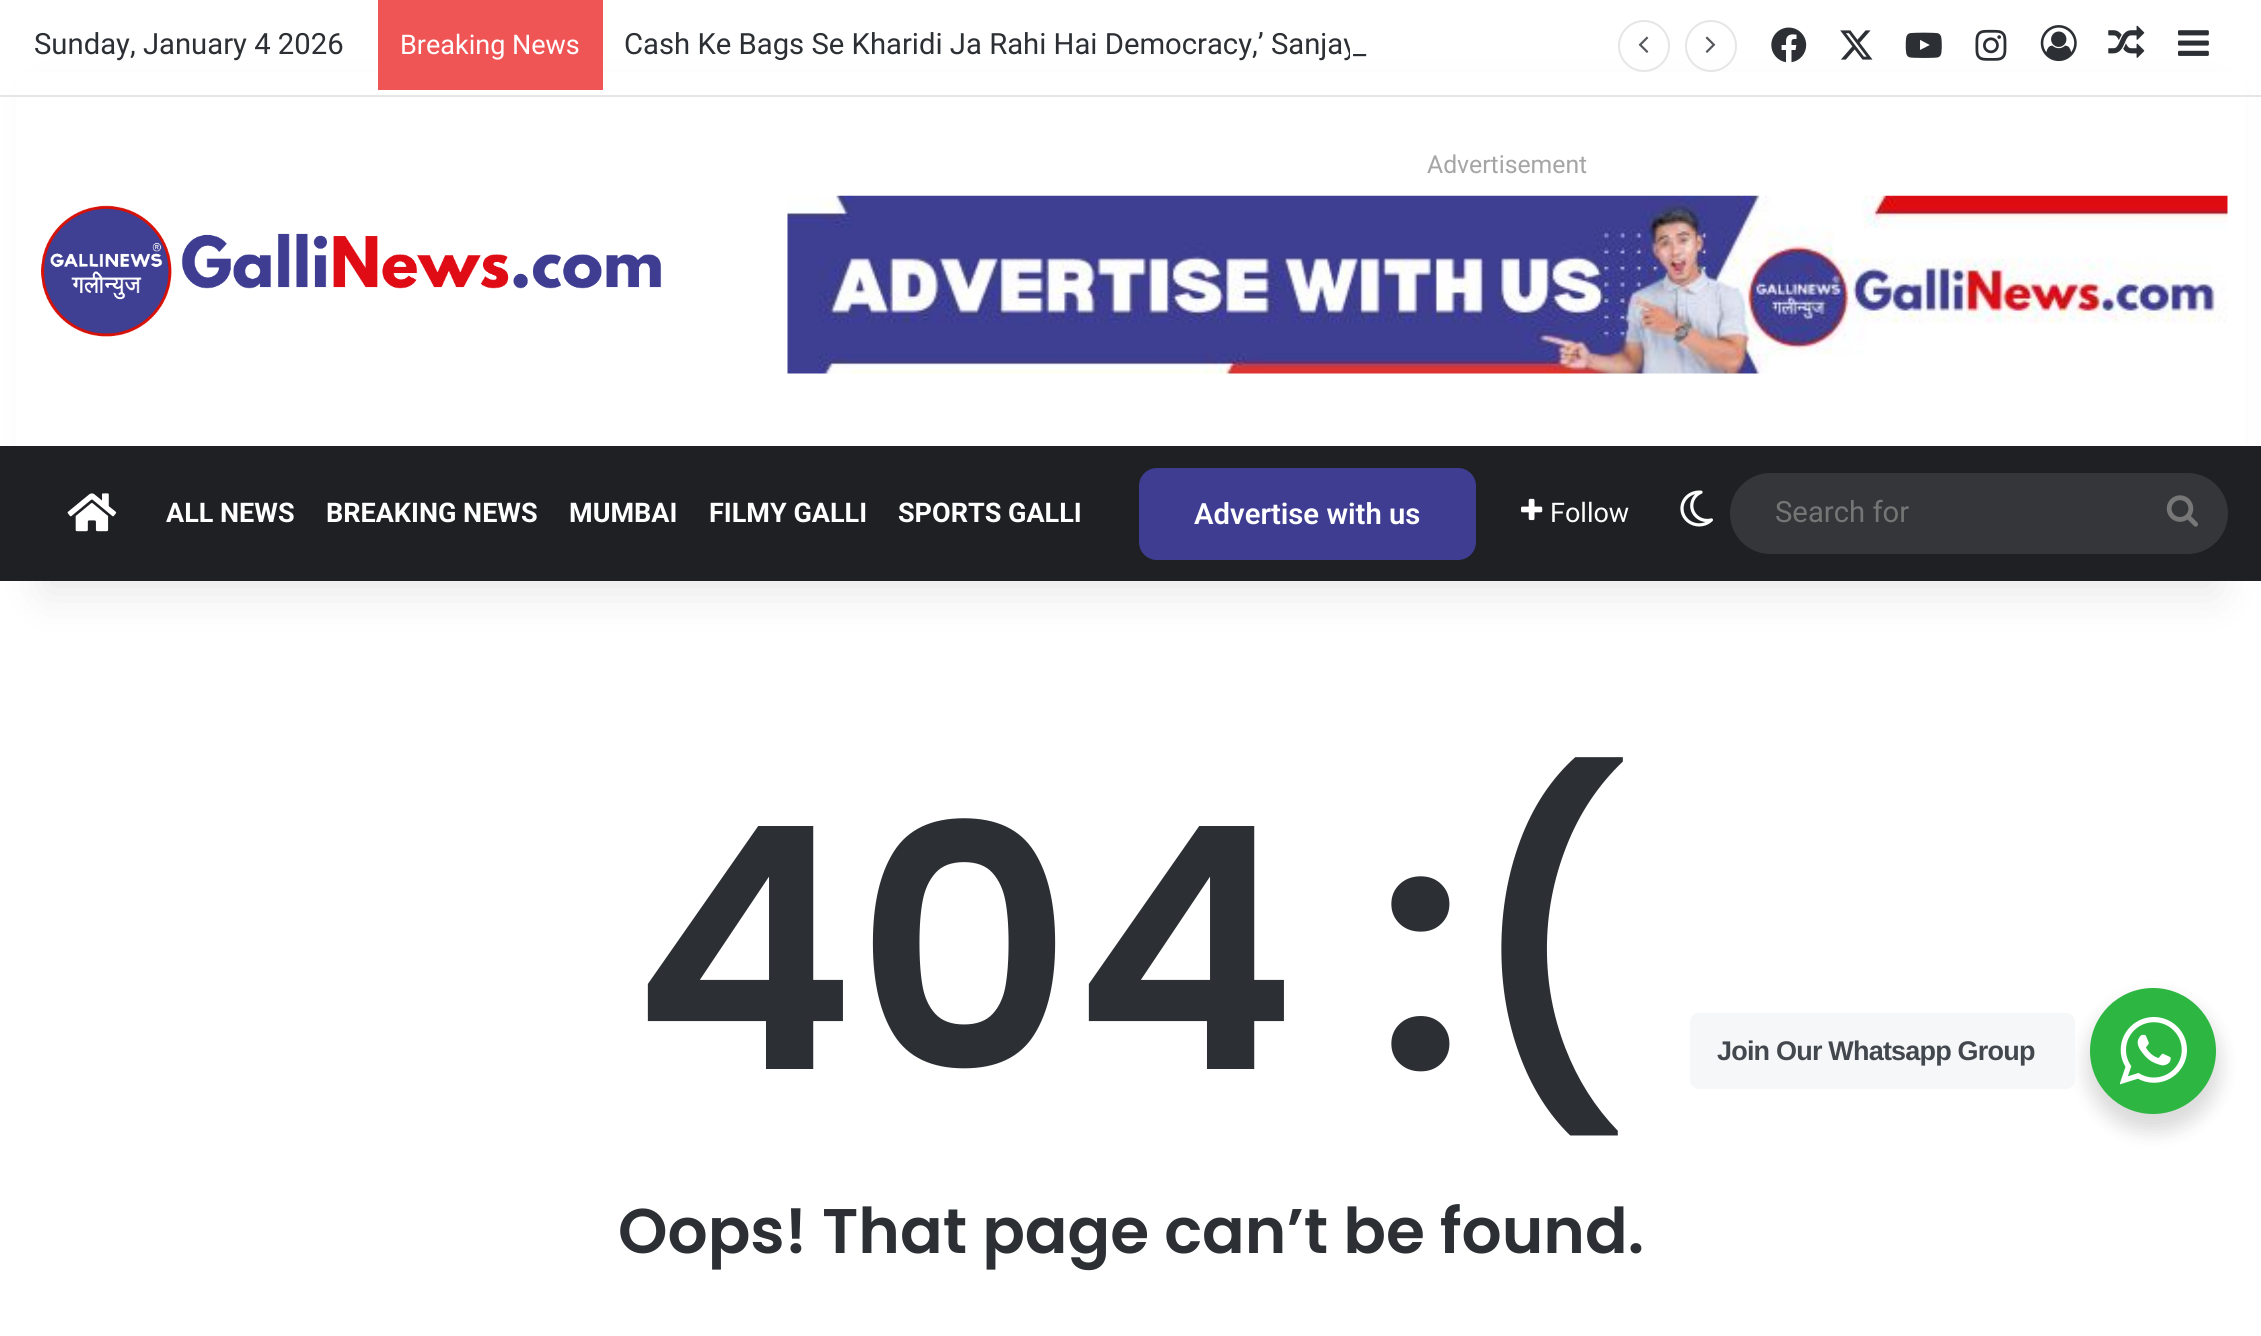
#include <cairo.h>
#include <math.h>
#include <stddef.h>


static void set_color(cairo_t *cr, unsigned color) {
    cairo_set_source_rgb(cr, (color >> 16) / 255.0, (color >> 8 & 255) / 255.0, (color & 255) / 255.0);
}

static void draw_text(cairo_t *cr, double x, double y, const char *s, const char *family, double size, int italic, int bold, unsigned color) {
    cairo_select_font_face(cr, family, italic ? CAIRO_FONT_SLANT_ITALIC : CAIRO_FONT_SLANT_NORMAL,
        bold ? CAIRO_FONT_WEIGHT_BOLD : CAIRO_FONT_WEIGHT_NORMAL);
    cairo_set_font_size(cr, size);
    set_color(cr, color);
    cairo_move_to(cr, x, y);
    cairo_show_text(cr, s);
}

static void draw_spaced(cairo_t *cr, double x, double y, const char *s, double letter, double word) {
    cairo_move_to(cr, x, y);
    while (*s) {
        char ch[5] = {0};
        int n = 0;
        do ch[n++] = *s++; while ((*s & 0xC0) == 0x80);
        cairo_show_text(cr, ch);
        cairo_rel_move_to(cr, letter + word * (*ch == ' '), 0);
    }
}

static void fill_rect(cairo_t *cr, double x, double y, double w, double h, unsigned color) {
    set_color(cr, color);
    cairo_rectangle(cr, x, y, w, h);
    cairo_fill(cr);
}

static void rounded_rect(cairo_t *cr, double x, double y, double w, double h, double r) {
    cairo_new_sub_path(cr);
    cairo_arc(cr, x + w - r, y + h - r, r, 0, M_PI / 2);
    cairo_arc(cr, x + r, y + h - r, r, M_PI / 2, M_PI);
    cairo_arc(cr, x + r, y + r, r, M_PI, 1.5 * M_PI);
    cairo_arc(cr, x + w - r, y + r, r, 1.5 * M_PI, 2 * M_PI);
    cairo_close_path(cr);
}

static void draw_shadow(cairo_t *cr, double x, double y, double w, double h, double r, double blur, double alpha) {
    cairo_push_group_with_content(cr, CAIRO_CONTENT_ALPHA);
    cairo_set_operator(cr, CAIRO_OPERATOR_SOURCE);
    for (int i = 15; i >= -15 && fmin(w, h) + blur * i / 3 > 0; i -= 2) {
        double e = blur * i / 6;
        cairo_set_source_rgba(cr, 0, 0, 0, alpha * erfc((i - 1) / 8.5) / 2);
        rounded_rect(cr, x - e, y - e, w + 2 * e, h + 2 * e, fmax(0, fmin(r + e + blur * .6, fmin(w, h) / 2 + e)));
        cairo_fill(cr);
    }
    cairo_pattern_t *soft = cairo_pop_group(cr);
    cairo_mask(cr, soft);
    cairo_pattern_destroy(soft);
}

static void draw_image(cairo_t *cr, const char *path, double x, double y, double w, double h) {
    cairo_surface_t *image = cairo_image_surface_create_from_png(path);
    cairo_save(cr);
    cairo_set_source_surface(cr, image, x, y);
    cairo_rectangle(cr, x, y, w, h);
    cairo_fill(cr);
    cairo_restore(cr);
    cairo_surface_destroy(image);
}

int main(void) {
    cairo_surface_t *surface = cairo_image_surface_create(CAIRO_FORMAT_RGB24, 2261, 1336);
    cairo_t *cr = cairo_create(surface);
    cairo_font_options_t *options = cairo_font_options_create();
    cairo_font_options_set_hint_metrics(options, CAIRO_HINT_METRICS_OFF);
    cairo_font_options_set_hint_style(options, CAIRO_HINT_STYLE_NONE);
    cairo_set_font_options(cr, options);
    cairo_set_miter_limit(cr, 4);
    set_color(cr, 0xFFFFFF);
    cairo_paint(cr);
    set_color(cr, 0x000000);
    draw_shadow(cr, 45, 101, 2171, 491, 0, 22.5, 0.1);
    fill_rect(cr, 16, 72, 2229, 374, 0xFFFFFF);
    fill_rect(cr, 0, 95, 2261, 2, 0xE6E6E6);
    draw_text(cr, 34, 54, "Sunday, January 4 2026", "Roboto", 29.25, 0, 0, 0x2C2F34);
    fill_rect(cr, 378, 0, 225, 90, 0xF05555);
    draw_text(cr, 400, 54, "Breaking News", "Roboto", 27, 0, 0, 0xFFFFFF);
    draw_text(cr, 624, 54, "Cash Ke Bags Se Kharidi Ja Rahi Hai Democracy,’ Sanjay", "Roboto", 29.25, 0, 0, 0x2C2F34);
    fill_rect(cr, 1350, 38, 8, 20, 0xFFFFFF);
    draw_text(cr, 1353, 54, "_", "Roboto", 29.25, 0, 0, 0x2C2F34);
    cairo_new_path(cr);
    cairo_arc(cr, 1644, 46, 25, 0, 2 * M_PI);
    set_color(cr, 0xE6E6E6);
    cairo_stroke(cr);
    draw_image(cr, "assets/img1.png", 1638, 36, 11, 17);
    cairo_arc(cr, 1711, 46, 25, 0, 2 * M_PI);
    cairo_stroke(cr);
    draw_image(cr, "assets/img2.png", 1705, 36, 11, 17);
    draw_image(cr, "assets/img3.png", 1771, 27, 36, 36);
    draw_image(cr, "assets/img4.png", 1840, 30, 33, 30);
    draw_image(cr, "assets/img5.png", 1905, 32, 37, 26);
    draw_image(cr, "assets/img6.png", 1975, 29, 32, 32);
    draw_image(cr, "assets/img7.png", 2040, 25, 37, 37);
    draw_image(cr, "assets/img8.png", 2108, 25, 37, 33);
    draw_image(cr, "assets/img9.png", 2178, 30, 31, 26);
    draw_text(cr, 1427, 173, "Advertisement", "Roboto", 24.75, 0, 0, 0xA5A5A5);
    draw_image(cr, "assets/img10.png", 787, 195, 1441, 179);
    draw_image(cr, "assets/img11.png", 41, 205, 621, 132);
    fill_rect(cr, 0, 446, 2261, 135, 0x1F2024);
    draw_image(cr, "assets/img12.png", 67, 493, 50, 39);
    draw_text(cr, 166, 522, "ALL NEWS", "Roboto", 27, 0, 1, 0xFFFFFF);
    draw_text(cr, 326, 522, "BREAKING NEWS", "Roboto", 27, 0, 1, 0xFFFFFF);
    draw_text(cr, 569, 522, "MUMBAI", "Roboto", 27, 0, 1, 0xFFFFFF);
    draw_text(cr, 709, 522, "FILMY GALLI", "Roboto", 27, 0, 1, 0xFFFFFF);
    draw_text(cr, 898, 522, "SPORTS GALLI", "Roboto", 27, 0, 1, 0xFFFFFF);
    set_color(cr, 0x3E3D92);
    rounded_rect(cr, 1139, 468, 337, 92, 18);
    cairo_fill(cr);
    draw_text(cr, 1194, 524, "Advertise with us", "Roboto SemiBold", 29.25, 0, 0, 0xFFFFFF);
    draw_image(cr, "assets/img13.png", 1521, 498, 22, 23);
    draw_text(cr, 1550, 522, "Follow", "Roboto", 27, 0, 0, 0xFFFFFF);
    draw_image(cr, "assets/img14.png", 1680, 490, 33, 37);
    set_color(cr, 0x35363A);
    rounded_rect(cr, 1730, 473, 498, 81, 40.5);
    cairo_fill(cr);
    draw_text(cr, 1775, 522, "Search for", "Roboto", 29.25, 0, 0, 0x757575);
    draw_image(cr, "assets/img15.png", 2166, 495, 32, 32);
    draw_text(cr, 632, 1069, "404 :(", "Poppins SemiBold", 337.5, 0, 0, 0x2C2F34);
    draw_text(cr, 618, 1253, "Oops! That page can’t be found.", "Poppins SemiBold", 63, 0, 0, 0x2C2F34);
    set_color(cr, 0x000000);
    draw_shadow(cr, 2086, 997, 135, 135, 67.5, 9, 0.14);
    set_color(cr, 0xF5F7F9);
    rounded_rect(cr, 1690, 1013, 385, 76, 9);
    cairo_fill(cr);
    cairo_select_font_face(cr, "Liberation Sans", CAIRO_FONT_SLANT_NORMAL, CAIRO_FONT_WEIGHT_BOLD);
    cairo_set_font_size(cr, 27);
    set_color(cr, 0x43474E);
    draw_spaced(cr, 1717, 1060, "Join Our Whatsapp Group", -0.8, 0);
    set_color(cr, 0x2DB742);
    cairo_new_path(cr);
    cairo_arc(cr, 2153, 1051, 63, 0, 2 * M_PI);
    cairo_fill(cr);
    draw_image(cr, "assets/img16.png", 2120, 1017, 67, 68);
    cairo_surface_write_to_png(surface, "output.png");
    cairo_font_options_destroy(options);
    cairo_destroy(cr);
    cairo_surface_destroy(surface);
    return 0;
}
